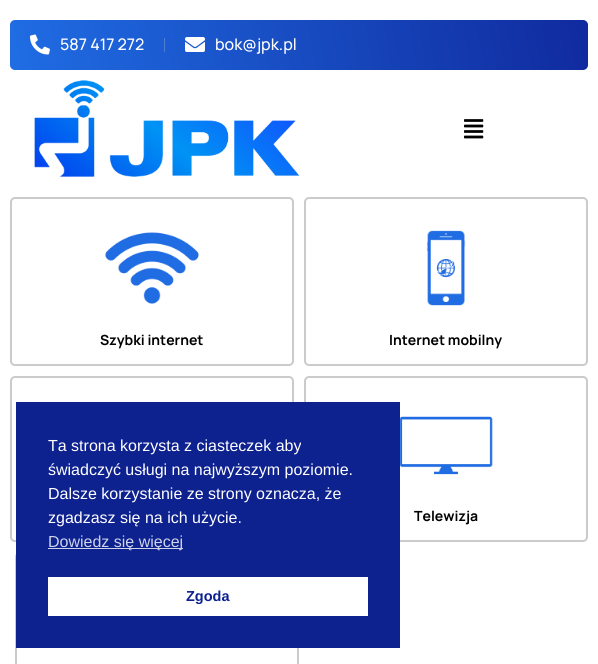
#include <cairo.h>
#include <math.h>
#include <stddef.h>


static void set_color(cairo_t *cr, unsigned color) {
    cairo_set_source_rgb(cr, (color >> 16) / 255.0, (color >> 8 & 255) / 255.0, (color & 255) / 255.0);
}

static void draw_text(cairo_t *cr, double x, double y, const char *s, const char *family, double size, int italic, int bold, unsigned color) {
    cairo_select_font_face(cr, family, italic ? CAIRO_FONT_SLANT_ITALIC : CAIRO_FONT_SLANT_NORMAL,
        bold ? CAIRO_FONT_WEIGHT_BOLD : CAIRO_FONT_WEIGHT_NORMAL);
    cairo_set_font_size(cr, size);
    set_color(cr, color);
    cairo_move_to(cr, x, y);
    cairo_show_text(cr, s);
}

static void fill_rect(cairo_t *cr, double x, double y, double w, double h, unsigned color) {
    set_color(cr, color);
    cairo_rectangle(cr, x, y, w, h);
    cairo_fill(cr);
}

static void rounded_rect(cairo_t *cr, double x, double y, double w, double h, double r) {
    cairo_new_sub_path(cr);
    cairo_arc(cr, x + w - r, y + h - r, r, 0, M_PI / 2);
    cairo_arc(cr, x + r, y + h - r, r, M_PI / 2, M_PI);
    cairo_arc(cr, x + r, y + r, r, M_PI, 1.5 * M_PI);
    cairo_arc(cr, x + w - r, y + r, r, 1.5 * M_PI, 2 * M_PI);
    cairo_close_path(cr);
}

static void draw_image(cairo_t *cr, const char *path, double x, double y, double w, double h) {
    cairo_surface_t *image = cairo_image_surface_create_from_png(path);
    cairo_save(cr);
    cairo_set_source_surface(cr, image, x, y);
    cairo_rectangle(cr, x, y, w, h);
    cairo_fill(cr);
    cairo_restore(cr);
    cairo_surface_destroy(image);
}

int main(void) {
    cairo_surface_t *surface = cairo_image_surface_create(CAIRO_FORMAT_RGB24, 598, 664);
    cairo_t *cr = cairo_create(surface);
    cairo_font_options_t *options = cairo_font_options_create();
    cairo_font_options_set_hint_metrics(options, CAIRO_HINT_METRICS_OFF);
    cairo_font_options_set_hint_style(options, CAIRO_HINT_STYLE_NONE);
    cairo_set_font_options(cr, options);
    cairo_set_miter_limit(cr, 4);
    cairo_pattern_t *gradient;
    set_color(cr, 0xFFFFFF);
    cairo_paint(cr);
    gradient = cairo_pattern_create_linear(584, -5.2, 14, 95);
    cairo_pattern_add_color_stop_rgba(gradient, 0, 0.063, 0.165, 0.62, 1);
    cairo_pattern_add_color_stop_rgba(gradient, 1, 0.125, 0.427, 0.894, 1);
    cairo_set_source(cr, gradient);
    cairo_pattern_destroy(gradient);
    rounded_rect(cr, 10, 20, 578, 50, 5);
    cairo_fill(cr);
    draw_image(cr, "assets/img1.png", 30, 34, 20, 21);
    draw_text(cr, 60, 50, "587 417 272", "Manrope Medium", 16, 0, 0, 0xFFFFFF);
    fill_rect(cr, 164, 38, 1, 14, 0x4E7DD4);
    draw_image(cr, "assets/img2.png", 185, 37, 20, 15);
    draw_text(cr, 215, 50, "bok@jpk.pl", "Manrope Medium", 16, 0, 0, 0xFFFFFF);
    draw_image(cr, "assets/img3.png", 34, 80, 265, 97);
    draw_image(cr, "assets/img4.png", 464, 119, 20, 20);
    rounded_rect(cr, 11, 198, 282, 167, 4);
    set_color(cr, 0xCBCBCB);
    cairo_stroke(cr);
    draw_image(cr, "assets/img5.png", 105, 232, 94, 72);
    draw_text(cr, 100, 345, "Szybki internet", "Manrope", 14, 0, 1, 0x000000);
    rounded_rect(cr, 305, 198, 282, 167, 4);
    set_color(cr, 0xCBCBCB);
    cairo_stroke(cr);
    draw_image(cr, "assets/img6.png", 426, 230, 40, 76);
    draw_text(cr, 389, 345, "Internet mobilny", "Manrope", 14, 0, 1, 0x000000);
    rounded_rect(cr, 11, 377, 282, 164, 4);
    set_color(cr, 0xCBCBCB);
    cairo_stroke(cr);
    rounded_rect(cr, 305, 377, 282, 164, 4);
    cairo_stroke(cr);
    draw_image(cr, "assets/img7.png", 400, 416, 93, 59);
    draw_text(cr, 414, 521, "Telewizja", "Manrope", 14, 0, 1, 0x000000);
    rounded_rect(cr, 16, 553, 282, 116, 4);
    set_color(cr, 0xCBCBCB);
    cairo_stroke(cr);
    fill_rect(cr, 16, 402, 384, 246, 0x0D218F);
    draw_text(cr, 48, 451, "Ta strona korzysta z ciasteczek aby", "Liberation Sans", 16, 0, 0, 0xFFFFFF);
    draw_text(cr, 48, 475, "świadczyć usługi na najwyższym poziomie.", "Liberation Sans", 16, 0, 0, 0xFFFFFF);
    draw_text(cr, 48, 499, "Dalsze korzystanie ze strony oznacza, że", "Liberation Sans", 16, 0, 0, 0xFFFFFF);
    draw_text(cr, 48, 523, "zgadzasz się na ich użycie.", "Liberation Sans", 16, 0, 0, 0xFFFFFF);
    fill_rect(cr, 48, 548, 135, 1, 0xCFD3E9);
    draw_text(cr, 48, 547, "Dowiedz się więcej", "Liberation Sans", 16, 0, 0, 0xCFD3E9);
    fill_rect(cr, 48, 577, 320, 39, 0xFFFFFF);
    draw_text(cr, 186, 601, "Zgoda", "Liberation Sans", 14.5, 0, 1, 0x0D218F);
    cairo_surface_write_to_png(surface, "output.png");
    cairo_font_options_destroy(options);
    cairo_destroy(cr);
    cairo_surface_destroy(surface);
    return 0;
}
